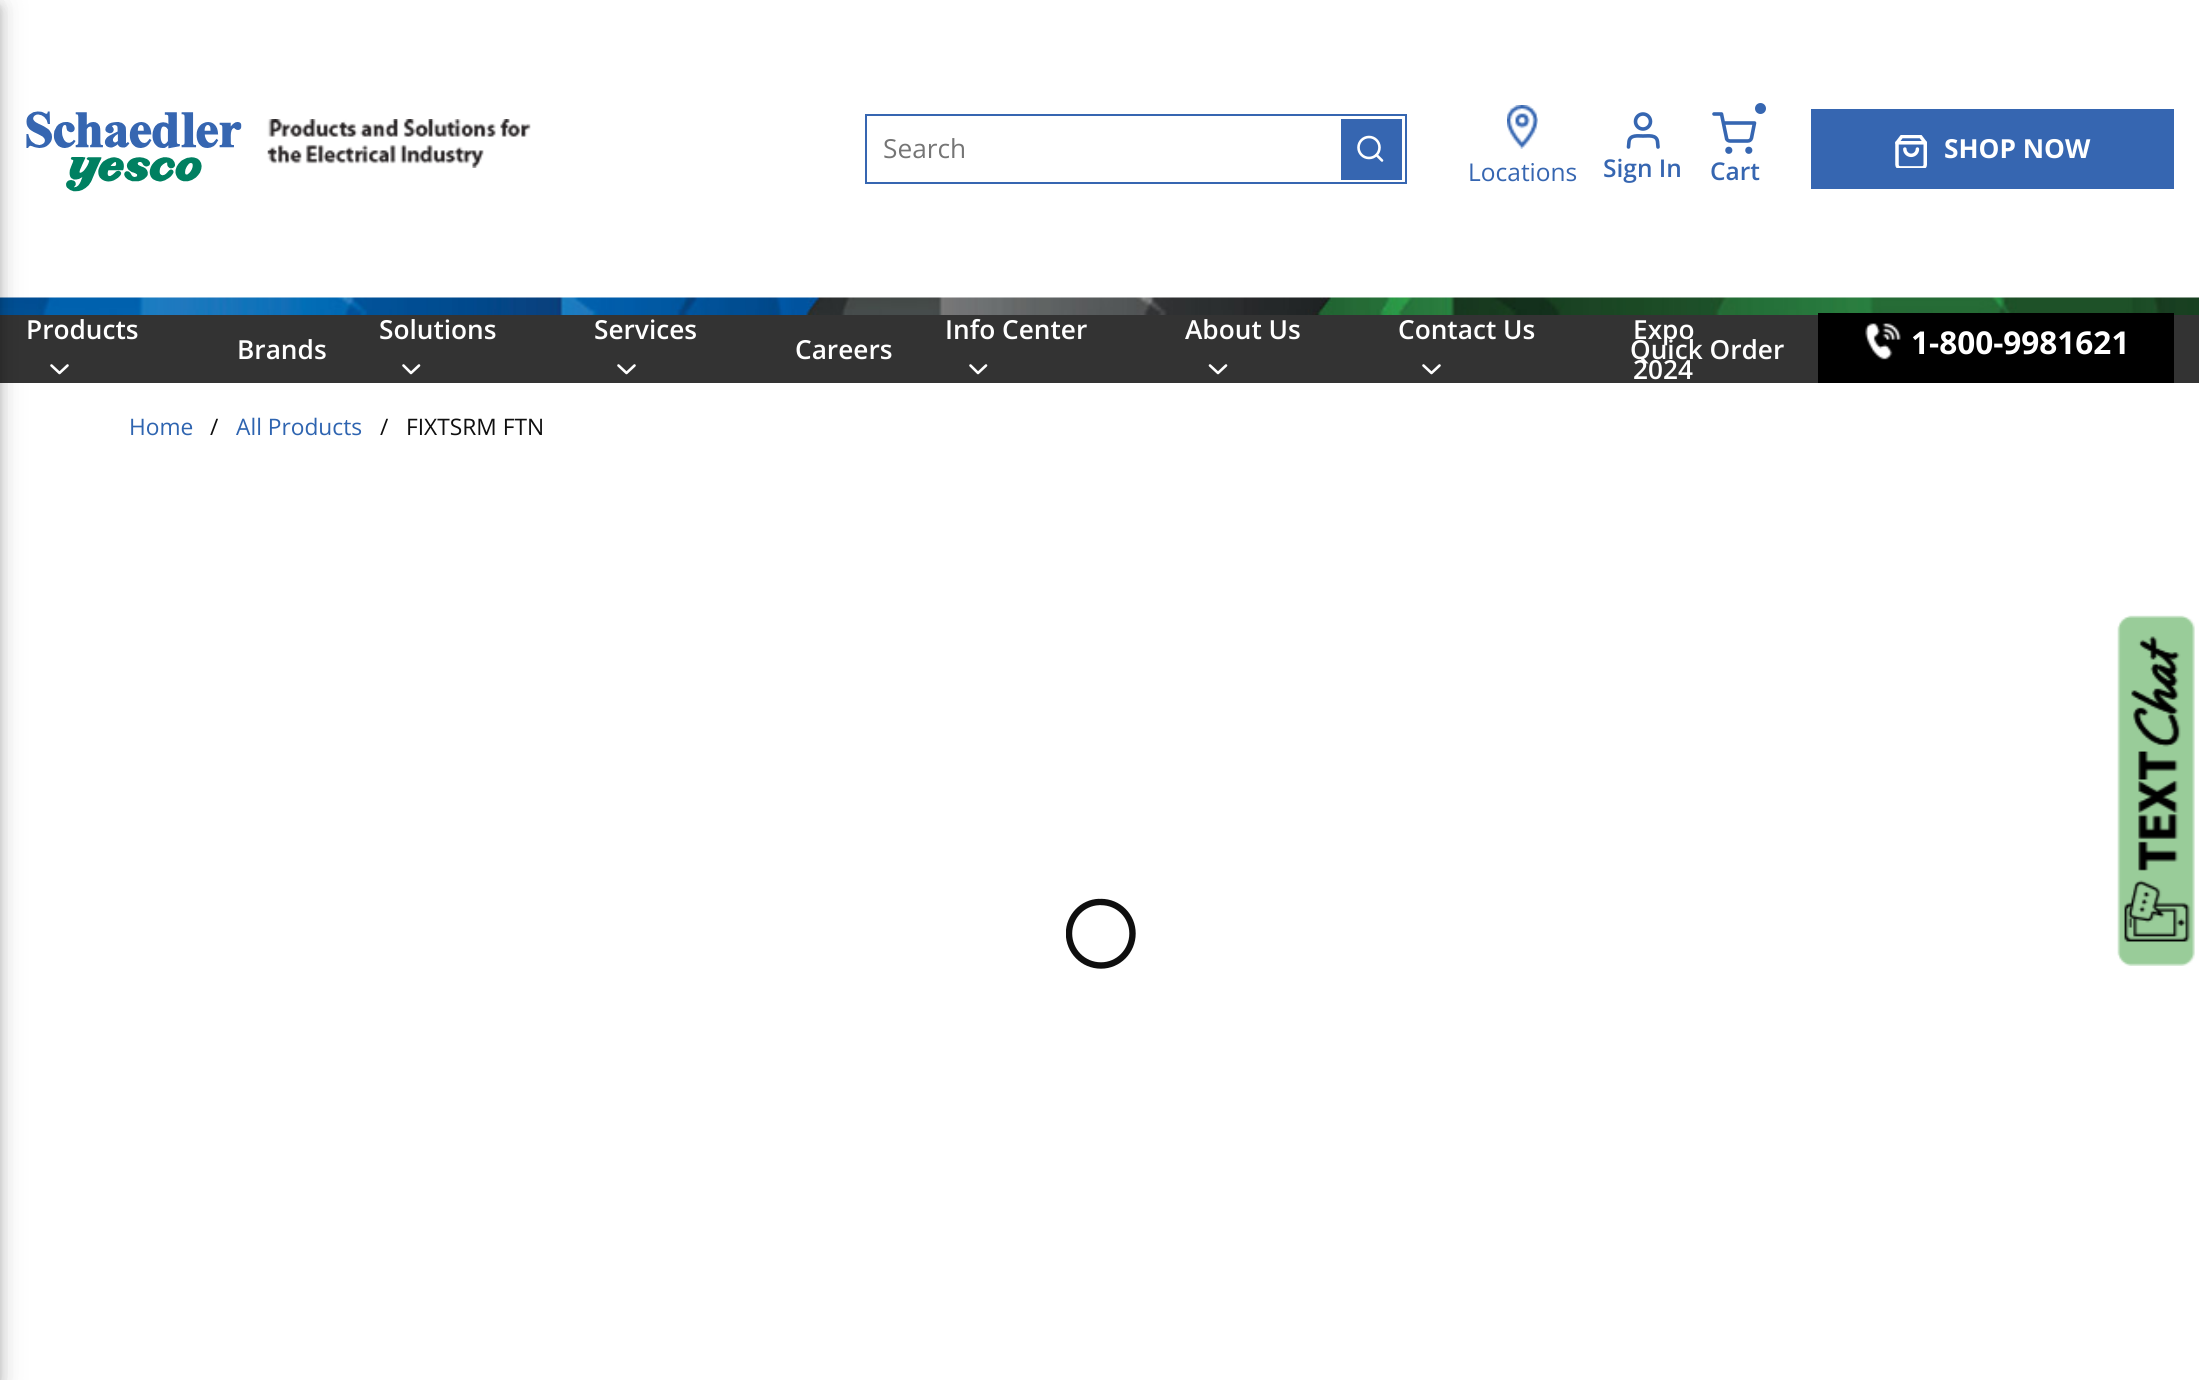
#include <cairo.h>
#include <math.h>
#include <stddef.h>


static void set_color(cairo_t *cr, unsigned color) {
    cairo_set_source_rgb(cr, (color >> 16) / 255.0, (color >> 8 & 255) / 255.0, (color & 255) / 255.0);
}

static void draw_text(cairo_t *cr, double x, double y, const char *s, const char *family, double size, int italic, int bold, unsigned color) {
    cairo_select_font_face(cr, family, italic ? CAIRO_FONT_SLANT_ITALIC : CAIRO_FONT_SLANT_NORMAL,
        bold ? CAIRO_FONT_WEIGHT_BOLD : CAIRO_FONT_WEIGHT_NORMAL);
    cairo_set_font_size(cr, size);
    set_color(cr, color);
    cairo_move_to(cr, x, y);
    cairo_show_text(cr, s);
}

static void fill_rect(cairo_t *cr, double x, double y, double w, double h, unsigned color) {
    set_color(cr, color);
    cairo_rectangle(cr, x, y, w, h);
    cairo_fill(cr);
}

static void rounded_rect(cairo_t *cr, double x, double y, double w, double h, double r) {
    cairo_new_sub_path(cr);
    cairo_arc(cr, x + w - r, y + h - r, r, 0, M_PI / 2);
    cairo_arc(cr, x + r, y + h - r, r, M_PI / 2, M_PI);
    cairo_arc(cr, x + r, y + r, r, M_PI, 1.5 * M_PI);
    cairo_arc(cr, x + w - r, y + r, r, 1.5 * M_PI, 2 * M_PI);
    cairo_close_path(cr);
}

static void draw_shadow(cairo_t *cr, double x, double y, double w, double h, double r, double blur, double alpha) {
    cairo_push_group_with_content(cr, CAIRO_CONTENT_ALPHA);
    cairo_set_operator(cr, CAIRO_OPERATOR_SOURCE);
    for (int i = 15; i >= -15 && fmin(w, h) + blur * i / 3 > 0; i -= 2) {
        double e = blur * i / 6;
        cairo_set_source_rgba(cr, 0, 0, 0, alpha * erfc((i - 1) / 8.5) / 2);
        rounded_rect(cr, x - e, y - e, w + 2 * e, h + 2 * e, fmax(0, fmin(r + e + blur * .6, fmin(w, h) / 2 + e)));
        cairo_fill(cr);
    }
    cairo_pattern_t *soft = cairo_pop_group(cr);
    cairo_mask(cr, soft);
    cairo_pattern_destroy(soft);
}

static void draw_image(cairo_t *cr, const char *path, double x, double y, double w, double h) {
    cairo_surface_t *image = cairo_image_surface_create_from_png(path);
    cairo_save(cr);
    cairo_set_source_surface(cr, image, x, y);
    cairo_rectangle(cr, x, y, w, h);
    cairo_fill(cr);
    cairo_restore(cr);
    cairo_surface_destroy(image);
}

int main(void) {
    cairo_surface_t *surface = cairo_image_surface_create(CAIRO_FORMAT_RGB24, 2199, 1380);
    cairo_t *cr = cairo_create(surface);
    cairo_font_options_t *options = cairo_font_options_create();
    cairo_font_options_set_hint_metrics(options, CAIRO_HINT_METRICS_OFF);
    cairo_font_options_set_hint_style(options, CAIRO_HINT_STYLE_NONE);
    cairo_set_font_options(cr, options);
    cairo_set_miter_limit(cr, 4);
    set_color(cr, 0xFFFFFF);
    cairo_paint(cr);
    draw_image(cr, "assets/img1.png", 26, 111, 216, 81);
    draw_image(cr, "assets/img5.png", 0, 297, 2199, 18);
    fill_rect(cr, 0, 315, 2199, 68, 0x333333);
    set_color(cr, 0x000000);
    draw_shadow(cr, -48, 2, 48, 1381, 0, 16, 0.12);
    draw_shadow(cr, -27, 11, 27, 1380, 0, 9, 0.14);
    draw_shadow(cr, -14, 7, 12, 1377, 0, 4.5, 0.2);
    draw_image(cr, "assets/img2.png", 267, 119, 264, 49);
    cairo_rectangle(cr, 866, 115, 540, 68);
    set_color(cr, 0x3666B1);
    cairo_stroke(cr);
    draw_text(cr, 883, 158, "Search", "Open Sans", 26.25, 0, 0, 0x757575);
    fill_rect(cr, 1341, 119, 61, 61, 0x3666B1);
    cairo_new_path(cr);
    cairo_arc(cr, 1369, 147.5, 10.5, 0, 2 * M_PI);
    set_color(cr, 0xFFFFFF);
    cairo_set_line_width(cr, 2.6);
    cairo_stroke(cr);
    cairo_new_path(cr);
    cairo_move_to(cr, 1382, 160.5);
    cairo_line_to(cr, 1376.5, 155);
    cairo_set_line_cap(cr, CAIRO_LINE_CAP_ROUND);
    cairo_set_line_join(cr, CAIRO_LINE_JOIN_ROUND);
    cairo_stroke(cr);
    fill_rect(cr, 1811, 109, 363, 80, 0x3666B1);
    draw_image(cr, "assets/img3.png", 1895, 135, 32, 33);
    draw_text(cr, 1944, 158, "SHOP NOW", "Open Sans", 26.25, 0, 1, 0xFFFFFF);
    draw_image(cr, "assets/img4.png", 1507, 105, 31, 44);
    draw_text(cr, 1468, 181, "Locations", "Open Sans", 24.5, 0, 0, 0x3666B1);
    cairo_new_path(cr);
    cairo_move_to(cr, 1658, 147);
    cairo_line_to(cr, 1657.5, 141.5);
    cairo_curve_to(cr, 1656.5, 134.5, 1648.5, 136, 1643, 136);
    cairo_curve_to(cr, 1638, 136, 1630, 134.5, 1629, 141.5);
    cairo_line_to(cr, 1628.5, 147);
    cairo_set_line_width(cr, 3.6);
    cairo_stroke(cr);
    cairo_arc(cr, 1643, 121.5, 7.5, 0, 2 * M_PI);
    cairo_set_line_cap(cr, CAIRO_LINE_CAP_BUTT);
    cairo_set_line_join(cr, CAIRO_LINE_JOIN_MITER);
    cairo_stroke(cr);
    draw_text(cr, 1603, 177, "Sign In", "Open Sans SemiBold", 24.5, 0, 0, 0x3666B1);
    cairo_new_path(cr);
    cairo_arc(cr, 1728.8, 150.3, 1.8, 0, 2 * M_PI);
    cairo_stroke(cr);
    cairo_arc(cr, 1748.8, 150.3, 1.8, 0, 2 * M_PI);
    cairo_stroke(cr);
    cairo_new_path(cr);
    cairo_move_to(cr, 1714, 114);
    cairo_line_to(cr, 1721.5, 114);
    cairo_line_to(cr, 1726.5, 138);
    cairo_curve_to(cr, 1726.5, 140, 1728.5, 141, 1730, 141);
    cairo_line_to(cr, 1747.5, 141);
    cairo_curve_to(cr, 1749.5, 141, 1751, 140, 1751.5, 138);
    cairo_line_to(cr, 1754.5, 123);
    cairo_line_to(cr, 1723.5, 123);
    cairo_set_line_cap(cr, CAIRO_LINE_CAP_ROUND);
    cairo_set_line_join(cr, CAIRO_LINE_JOIN_ROUND);
    cairo_stroke(cr);
    cairo_arc(cr, 1760.5, 108.5, 5.5, 0, 2 * M_PI);
    cairo_fill(cr);
    draw_text(cr, 1710, 180, "Cart", "Open Sans SemiBold", 24.5, 0, 0, 0x3666B1);
    draw_text(cr, 26, 339, "Products", "Open Sans SemiBold", 26.25, 0, 0, 0xFFFFFF);
    cairo_new_path(cr);
    cairo_move_to(cr, 51.5, 365.5);
    cairo_line_to(cr, 59.5, 373);
    cairo_line_to(cr, 67.5, 365.5);
    cairo_set_line_width(cr, 2.6);
    cairo_stroke(cr);
    draw_text(cr, 237, 359, "Brands", "Open Sans SemiBold", 26.25, 0, 0, 0xFFFFFF);
    draw_text(cr, 379, 339, "Solutions", "Open Sans SemiBold", 26.25, 0, 0, 0xFFFFFF);
    cairo_new_path(cr);
    cairo_move_to(cr, 403.5, 365.5);
    cairo_line_to(cr, 411, 373);
    cairo_line_to(cr, 419, 365.5);
    cairo_stroke(cr);
    draw_text(cr, 594, 339, "Services", "Open Sans SemiBold", 26.25, 0, 0, 0xFFFFFF);
    cairo_new_path(cr);
    cairo_move_to(cr, 618.5, 365.5);
    cairo_line_to(cr, 626.5, 373);
    cairo_line_to(cr, 634.5, 365.5);
    cairo_stroke(cr);
    draw_text(cr, 945, 339, "Info Center", "Open Sans SemiBold", 26.25, 0, 0, 0xFFFFFF);
    cairo_new_path(cr);
    cairo_move_to(cr, 970.5, 365.5);
    cairo_line_to(cr, 978, 373);
    cairo_line_to(cr, 986, 365.5);
    cairo_stroke(cr);
    draw_text(cr, 1185, 339, "About Us", "Open Sans SemiBold", 26.25, 0, 0, 0xFFFFFF);
    cairo_new_path(cr);
    cairo_move_to(cr, 1210, 365.5);
    cairo_line_to(cr, 1218, 373);
    cairo_line_to(cr, 1226, 365.5);
    cairo_stroke(cr);
    draw_text(cr, 1398, 339, "Contact Us", "Open Sans SemiBold", 26.25, 0, 0, 0xFFFFFF);
    cairo_new_path(cr);
    cairo_move_to(cr, 1423.5, 365.5);
    cairo_line_to(cr, 1431.5, 373);
    cairo_line_to(cr, 1439.5, 365.5);
    cairo_stroke(cr);
    draw_text(cr, 1633, 339, "Expo", "Open Sans SemiBold", 26.25, 0, 0, 0xFFFFFF);
    draw_text(cr, 1633, 379, "2024", "Open Sans SemiBold", 26.25, 0, 0, 0xFFFFFF);
    draw_text(cr, 795, 359, "Careers", "Open Sans SemiBold", 26.25, 0, 0, 0xFFFFFF);
    draw_text(cr, 1630, 359, "Quick Order", "Open Sans SemiBold", 26.25, 0, 0, 0xFFFFFF);
    fill_rect(cr, 1818, 313, 356, 70, 0x000000);
    draw_image(cr, "assets/img6.png", 1865, 323, 36, 37);
    draw_text(cr, 1911, 354, "1-800-9981621", "Open Sans", 31.5, 0, 1, 0xFFFFFF);
    draw_image(cr, "assets/img7.png", 2117, 615, 78, 351);
    draw_text(cr, 129, 435, "Home", "Open Sans", 22.75, 0, 0, 0x2E64B0);
    draw_text(cr, 210, 435, "/", "Open Sans", 22.75, 0, 0, 0x0F0F0F);
    draw_text(cr, 236, 435, "All Products", "Open Sans", 22.75, 0, 0, 0x2E64B0);
    draw_text(cr, 380, 435, "/", "Open Sans", 22.75, 0, 0, 0x0F0F0F);
    draw_text(cr, 406, 435, "FIXTSRM FTN", "Open Sans", 22.75, 0, 0, 0x0F0F0F);
    cairo_save(cr);
    cairo_rectangle(cr, 1066, 506, 70, 856);
    cairo_clip(cr);
    cairo_new_path(cr);
    cairo_move_to(cr, 1101, 902);
    cairo_curve_to(cr, 1118.5, 902, 1132.5, 916, 1132.5, 933.5);
    cairo_curve_to(cr, 1132.5, 951, 1118.5, 965.5, 1101, 965.5);
    cairo_curve_to(cr, 1083, 965.5, 1069, 951, 1069, 933.5);
    cairo_curve_to(cr, 1069, 916.5, 1082.5, 902.5, 1099, 902);
    cairo_set_line_width(cr, 6.4);
    cairo_set_line_join(cr, CAIRO_LINE_JOIN_MITER);
    cairo_stroke(cr);
    cairo_restore(cr);
    cairo_surface_write_to_png(surface, "output.png");
    cairo_font_options_destroy(options);
    cairo_destroy(cr);
    cairo_surface_destroy(surface);
    return 0;
}
